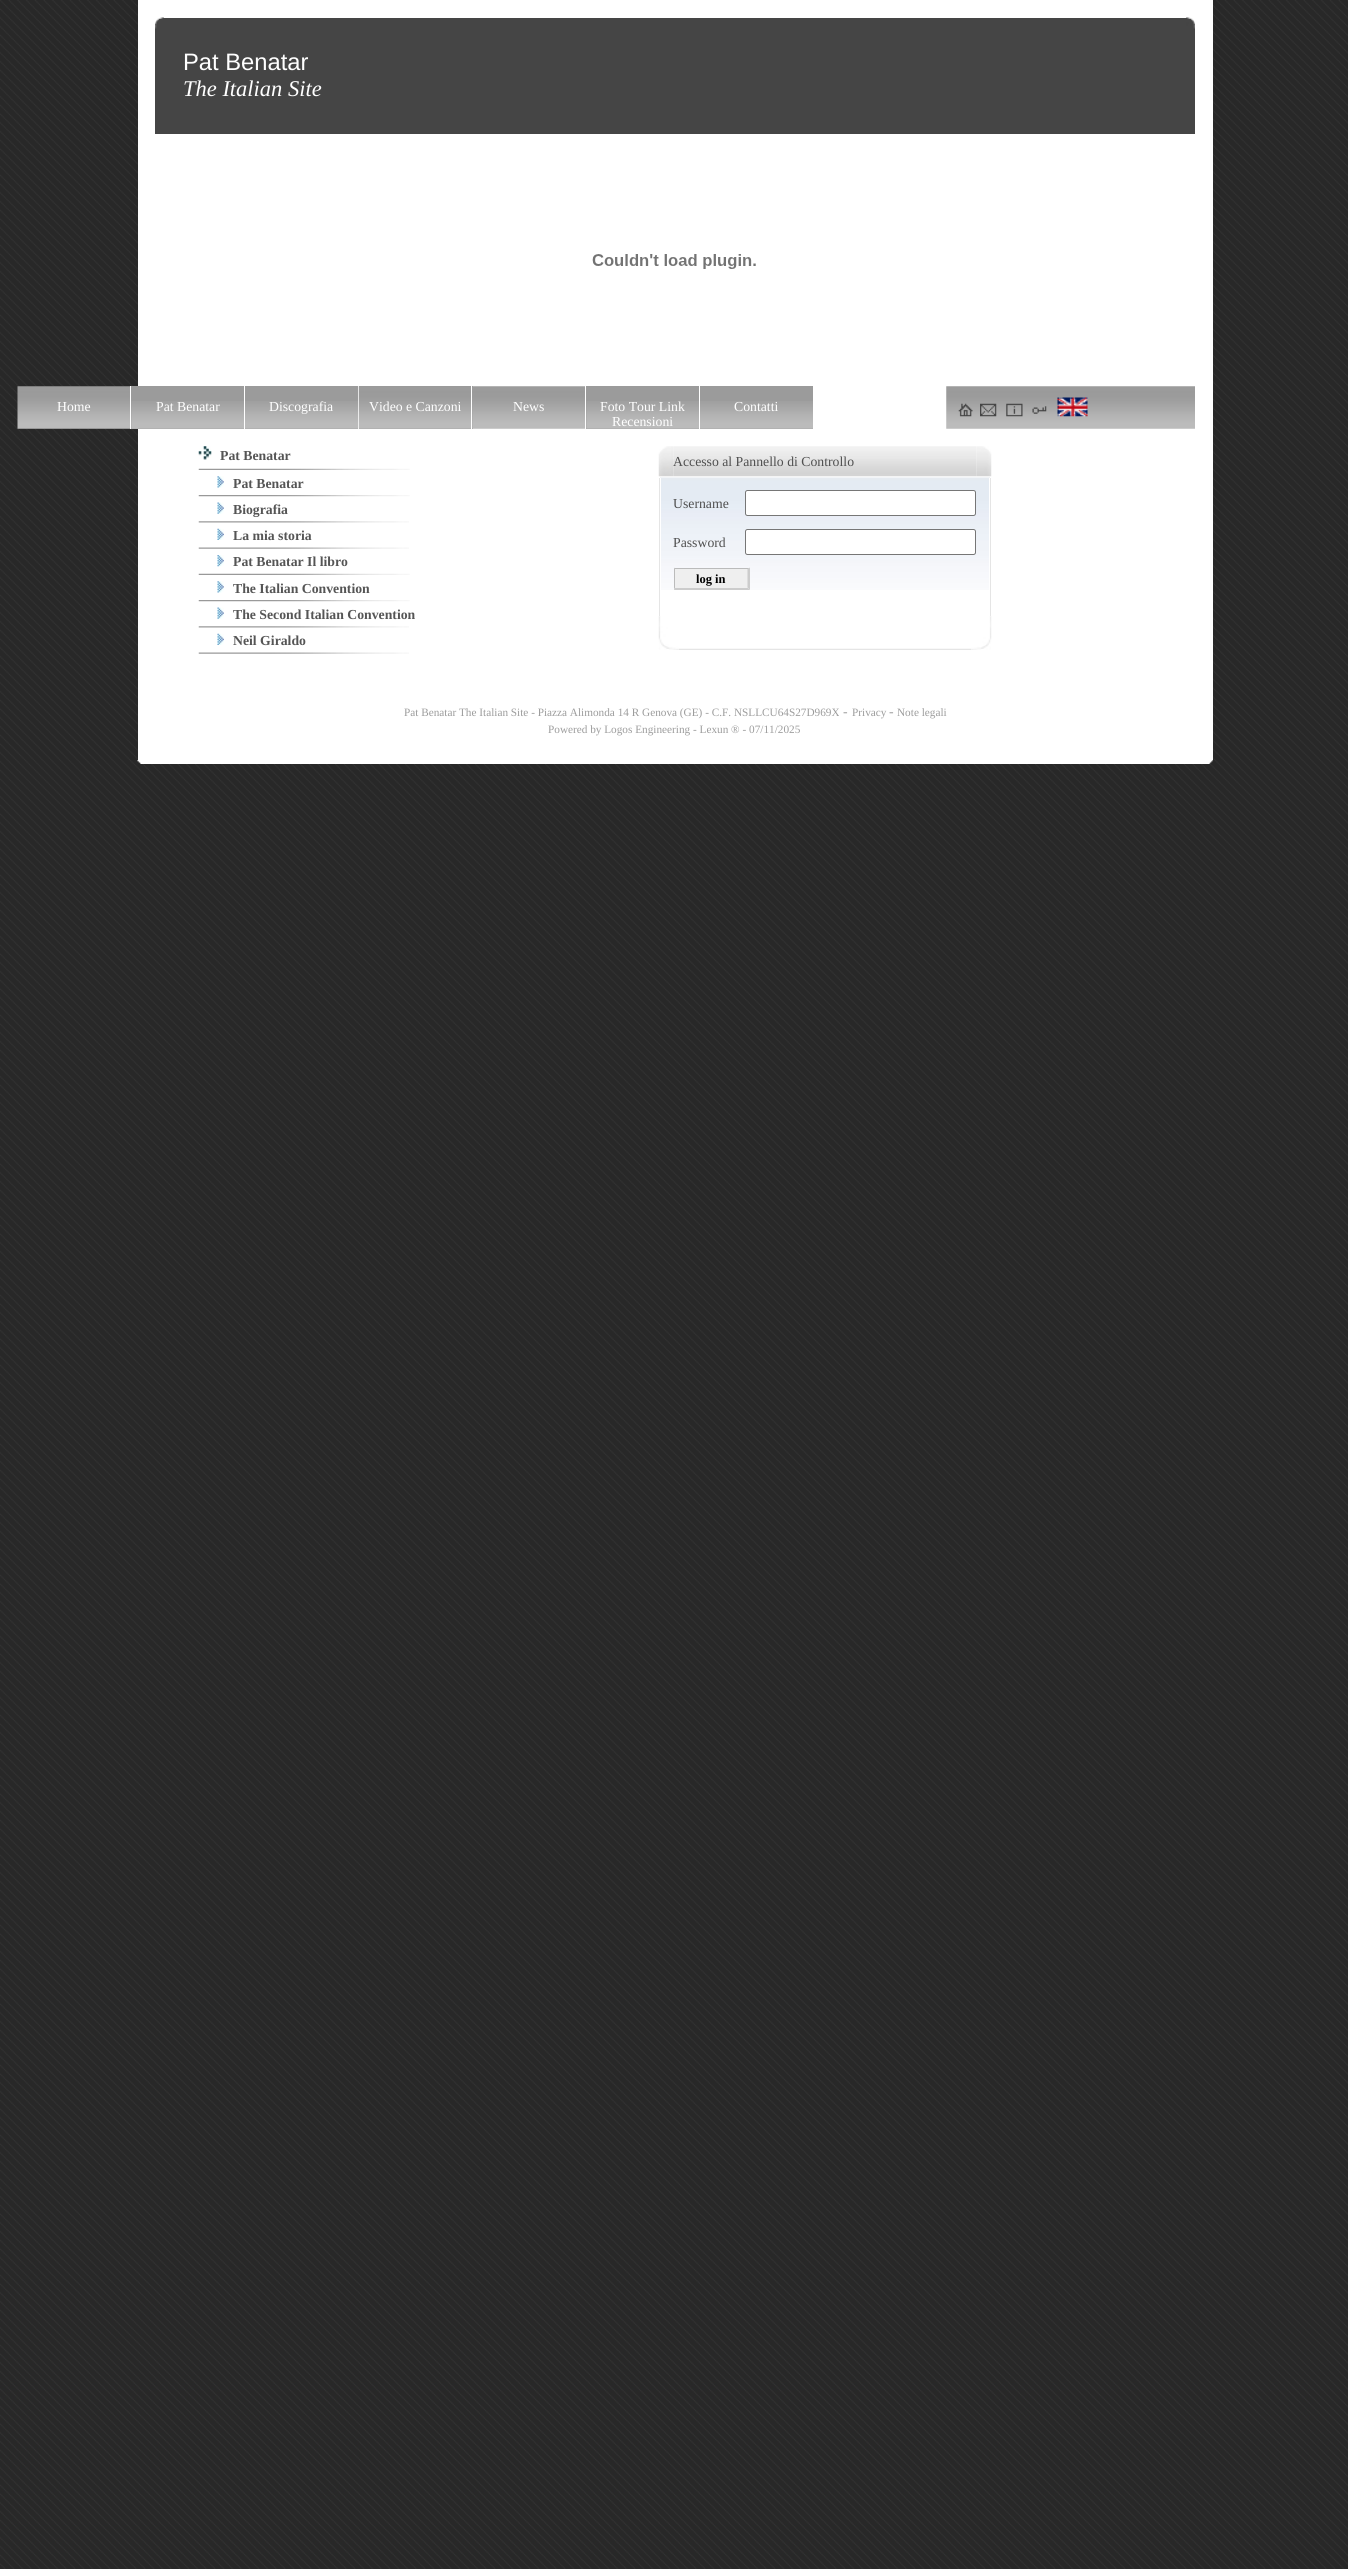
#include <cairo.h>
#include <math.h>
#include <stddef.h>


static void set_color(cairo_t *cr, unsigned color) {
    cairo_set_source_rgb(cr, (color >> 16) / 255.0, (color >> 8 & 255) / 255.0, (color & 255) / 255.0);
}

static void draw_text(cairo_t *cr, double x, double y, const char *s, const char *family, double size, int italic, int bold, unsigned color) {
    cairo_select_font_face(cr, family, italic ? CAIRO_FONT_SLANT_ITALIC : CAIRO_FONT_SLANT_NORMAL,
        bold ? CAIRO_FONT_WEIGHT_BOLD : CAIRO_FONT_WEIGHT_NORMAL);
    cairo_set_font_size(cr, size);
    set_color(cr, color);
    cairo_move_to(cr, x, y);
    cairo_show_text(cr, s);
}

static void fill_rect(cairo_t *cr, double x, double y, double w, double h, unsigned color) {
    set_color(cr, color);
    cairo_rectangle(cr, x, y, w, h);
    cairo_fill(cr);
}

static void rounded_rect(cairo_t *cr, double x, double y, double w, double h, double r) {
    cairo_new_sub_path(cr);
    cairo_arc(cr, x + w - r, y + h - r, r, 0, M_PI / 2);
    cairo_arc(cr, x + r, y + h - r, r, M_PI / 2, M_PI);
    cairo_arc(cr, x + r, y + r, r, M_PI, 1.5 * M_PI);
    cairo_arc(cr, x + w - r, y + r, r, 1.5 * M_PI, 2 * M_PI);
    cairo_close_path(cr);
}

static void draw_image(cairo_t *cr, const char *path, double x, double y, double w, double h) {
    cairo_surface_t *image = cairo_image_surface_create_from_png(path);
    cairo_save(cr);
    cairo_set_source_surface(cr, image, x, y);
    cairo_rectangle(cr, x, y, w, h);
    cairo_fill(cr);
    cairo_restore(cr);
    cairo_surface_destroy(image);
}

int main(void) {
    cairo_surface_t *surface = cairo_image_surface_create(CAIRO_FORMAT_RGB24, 1348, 2569);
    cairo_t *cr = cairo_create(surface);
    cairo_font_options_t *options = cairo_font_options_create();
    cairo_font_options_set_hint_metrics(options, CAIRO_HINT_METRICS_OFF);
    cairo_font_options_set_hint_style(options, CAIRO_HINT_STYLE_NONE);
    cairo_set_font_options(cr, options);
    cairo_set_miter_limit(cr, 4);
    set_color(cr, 0xFFFFFF);
    cairo_paint(cr);
    draw_image(cr, "assets/img1.png", 0, 0, 1348, 2569);
    fill_rect(cr, 138, 0, 1075, 760, 0xFFFFFF);
    fill_rect(cr, 155, 18, 1040, 116, 0x454545);
    draw_image(cr, "assets/img2.png", 155, 17, 9, 12);
    draw_image(cr, "assets/img3.png", 1186, 17, 9, 12);
    draw_text(cr, 183, 70, "Pat Benatar", "Liberation Sans", 23.75, 0, 0, 0xFFFFFF);
    draw_text(cr, 183, 96, "The Italian Site", "Liberation Serif", 22.5, 1, 0, 0xFFFFFF);
    draw_image(cr, "assets/img4.png", 592, 254, 164, 15);
    draw_image(cr, "assets/img5.png", 946, 386, 249, 43);
    draw_image(cr, "assets/img6.png", 958, 403, 15, 14);
    draw_image(cr, "assets/img7.png", 980, 403, 17, 14);
    draw_image(cr, "assets/img8.png", 1006, 403, 17, 14);
    draw_image(cr, "assets/img9.png", 1032, 406, 15, 8);
    draw_image(cr, "assets/img10.png", 1057, 397, 31, 20);
    draw_image(cr, "assets/img11.png", 198, 468, 212, 2);
    draw_image(cr, "assets/img12.png", 198, 446, 14, 14);
    draw_text(cr, 220, 460, "Pat Benatar", "Liberation Serif", 13.75, 0, 1, 0x555555);
    draw_image(cr, "assets/img13.png", 217, 476, 7, 12);
    draw_text(cr, 233, 488, "Pat Benatar", "Liberation Serif", 13.75, 0, 1, 0x555555);
    draw_image(cr, "assets/img14.png", 198, 495, 212, 2);
    draw_image(cr, "assets/img15.png", 217, 502, 7, 12);
    draw_text(cr, 233, 514, "Biografia", "Liberation Serif", 13.75, 0, 1, 0x555555);
    draw_image(cr, "assets/img16.png", 198, 521, 211, 2);
    draw_image(cr, "assets/img17.png", 217, 528, 7, 12);
    draw_text(cr, 233, 540, "La mia storia", "Liberation Serif", 13.75, 0, 1, 0x555555);
    draw_image(cr, "assets/img18.png", 198, 547, 211, 2);
    draw_image(cr, "assets/img19.png", 217, 555, 7, 12);
    draw_text(cr, 233, 566, "Pat Benatar Il libro", "Liberation Serif", 13.75, 0, 1, 0x555555);
    draw_image(cr, "assets/img11.png", 198, 573, 212, 2);
    draw_image(cr, "assets/img13.png", 217, 581, 7, 12);
    draw_text(cr, 233, 593, "The Italian Convention", "Liberation Serif", 13.75, 0, 1, 0x555555);
    draw_image(cr, "assets/img14.png", 198, 600, 212, 2);
    draw_image(cr, "assets/img15.png", 217, 607, 7, 12);
    draw_text(cr, 233, 619, "The Second Italian Convention", "Liberation Serif", 13.75, 0, 1, 0x555555);
    draw_image(cr, "assets/img16.png", 198, 626, 211, 2);
    draw_image(cr, "assets/img17.png", 217, 633, 7, 12);
    draw_text(cr, 233, 645, "Neil Giraldo", "Liberation Serif", 13.75, 0, 1, 0x555555);
    draw_image(cr, "assets/img18.png", 198, 652, 211, 2);
    draw_image(cr, "assets/img21.png", 673, 446, 304, 31);
    draw_image(cr, "assets/img20.png", 658, 446, 16, 31);
    draw_text(cr, 673, 466, "Accesso al Pannello di Controllo", "Liberation Serif", 13.75, 0, 0, 0x4F4F4F);
    draw_image(cr, "assets/img22.png", 976, 446, 16, 31);
    fill_rect(cr, 990, 478, 1, 138, 0xE5E5E5);
    fill_rect(cr, 659, 478, 1, 138, 0xE5E5E5);
    draw_image(cr, "assets/img23.png", 660, 477, 330, 113);
    fill_rect(cr, 989, 478, 1, 112, 0xFFFFFF);
    fill_rect(cr, 660, 478, 1, 112, 0xFFFFFF);
    draw_text(cr, 673, 508, "Username", "Liberation Serif", 13.75, 0, 0, 0x4F4F4F);
    set_color(cr, 0xFFFFFF);
    rounded_rect(cr, 745.5, 490.5, 230, 25, 2);
    cairo_fill_preserve(cr);
    set_color(cr, 0x767676);
    cairo_set_line_width(cr, 1);
    cairo_stroke(cr);
    draw_text(cr, 673, 547, "Password", "Liberation Serif", 13.75, 0, 0, 0x4F4F4F);
    set_color(cr, 0xFFFFFF);
    rounded_rect(cr, 745.5, 529.5, 230, 25, 2);
    cairo_fill_preserve(cr);
    set_color(cr, 0x767676);
    cairo_stroke(cr);
    fill_rect(cr, 675, 569, 73, 19, 0xEFEFEF);
    set_color(cr, 0xBBBBBB);
    cairo_new_path(cr);
    cairo_move_to(cr, 674, 568);
    cairo_line_to(cr, 750, 568);
    cairo_line_to(cr, 748, 569);
    cairo_line_to(cr, 675, 569);
    cairo_close_path(cr);
    cairo_fill(cr);
    set_color(cr, 0xCCCCCC);
    cairo_new_path(cr);
    cairo_move_to(cr, 750, 567.5);
    cairo_line_to(cr, 750, 590);
    cairo_line_to(cr, 747.5, 587.5);
    cairo_line_to(cr, 747.5, 569);
    cairo_close_path(cr);
    cairo_fill(cr);
    cairo_new_path(cr);
    cairo_move_to(cr, 750, 590);
    cairo_line_to(cr, 674, 590);
    cairo_line_to(cr, 675, 588);
    cairo_line_to(cr, 748, 588);
    cairo_close_path(cr);
    cairo_fill(cr);
    set_color(cr, 0xBBBBBB);
    cairo_new_path(cr);
    cairo_move_to(cr, 674, 590);
    cairo_line_to(cr, 674, 567.5);
    cairo_line_to(cr, 675, 569);
    cairo_line_to(cr, 675, 587.5);
    cairo_close_path(cr);
    cairo_fill(cr);
    draw_text(cr, 696, 583, "log in", "Liberation Serif", 12.5, 0, 1, 0x000000);
    draw_image(cr, "assets/img25.png", 678, 648, 294, 2);
    draw_image(cr, "assets/img24.png", 658, 616, 21, 34);
    draw_image(cr, "assets/img26.png", 971, 616, 21, 34);
    draw_text(cr, 404, 716, "Pat Benatar The Italian Site - Piazza Alimonda 14 R Genova (GE) - C.F. NSLLCU64S27D969X", "Liberation Serif", 11.25, 0, 0, 0x9C9C9C);
    draw_text(cr, 843, 716, "-", "Liberation Serif", 13.75, 0, 0, 0x9C9C9C);
    draw_text(cr, 852, 716, "Privacy", "Liberation Serif", 11.25, 0, 0, 0x9C9C9C);
    draw_text(cr, 889, 716, "-", "Liberation Serif", 13.75, 0, 0, 0x9C9C9C);
    draw_text(cr, 897, 716, "Note legali", "Liberation Serif", 11.25, 0, 0, 0x9C9C9C);
    draw_text(cr, 548, 733, "Powered by Logos Engineering - Lexun ® - 07/11/2025", "Liberation Serif", 11.25, 0, 0, 0x9C9C9C);
    draw_image(cr, "assets/img27.png", 137, 760, 4, 4);
    fill_rect(cr, 141, 760, 1068, 4, 0xFFFFFF);
    draw_image(cr, "assets/img28.png", 1209, 760, 4, 4);
    draw_image(cr, "assets/img29.png", 17, 386, 113, 43);
    fill_rect(cr, 130, 386, 1, 43, 0xFFFFFF);
    draw_text(cr, 57, 411, "Home", "Liberation Serif", 13.75, 0, 0, 0xFFFFFF);
    fill_rect(cr, 131, 386, 113, 43, 0x9B9B9B);
    draw_image(cr, "assets/img30.png", 131, 401, 113, 28);
    draw_text(cr, 156, 411, "Pat Benatar", "Liberation Serif", 13.75, 0, 0, 0xFFFFFF);
    fill_rect(cr, 245, 386, 113, 43, 0x9B9B9B);
    draw_image(cr, "assets/img31.png", 245, 401, 113, 28);
    draw_text(cr, 269, 411, "Discografia", "Liberation Serif", 13.75, 0, 0, 0xFFFFFF);
    fill_rect(cr, 359, 386, 114, 43, 0x9B9B9B);
    draw_image(cr, "assets/img32.png", 358, 386, 115, 43);
    fill_rect(cr, 471, 386, 1, 43, 0xFFFFFF);
    draw_text(cr, 369, 411, "Video e Canzoni", "Liberation Serif", 13.75, 0, 0, 0xFFFFFF);
    draw_image(cr, "assets/img33.png", 472, 386, 113, 43);
    draw_text(cr, 513, 411, "News", "Liberation Serif", 13.75, 0, 0, 0xFFFFFF);
    fill_rect(cr, 586, 386, 113, 43, 0x9B9B9B);
    draw_image(cr, "assets/img30.png", 586, 401, 113, 28);
    draw_text(cr, 600, 411, "Foto Tour Link", "Liberation Serif", 13.75, 0, 0, 0xFFFFFF);
    draw_text(cr, 612, 426, "Recensioni", "Liberation Serif", 13.75, 0, 0, 0xFFFFFF);
    fill_rect(cr, 700, 386, 113, 43, 0x9B9B9B);
    draw_image(cr, "assets/img31.png", 700, 401, 113, 28);
    draw_text(cr, 734, 411, "Contatti", "Liberation Serif", 13.75, 0, 0, 0xFFFFFF);
    cairo_surface_write_to_png(surface, "output.png");
    cairo_font_options_destroy(options);
    cairo_destroy(cr);
    cairo_surface_destroy(surface);
    return 0;
}
